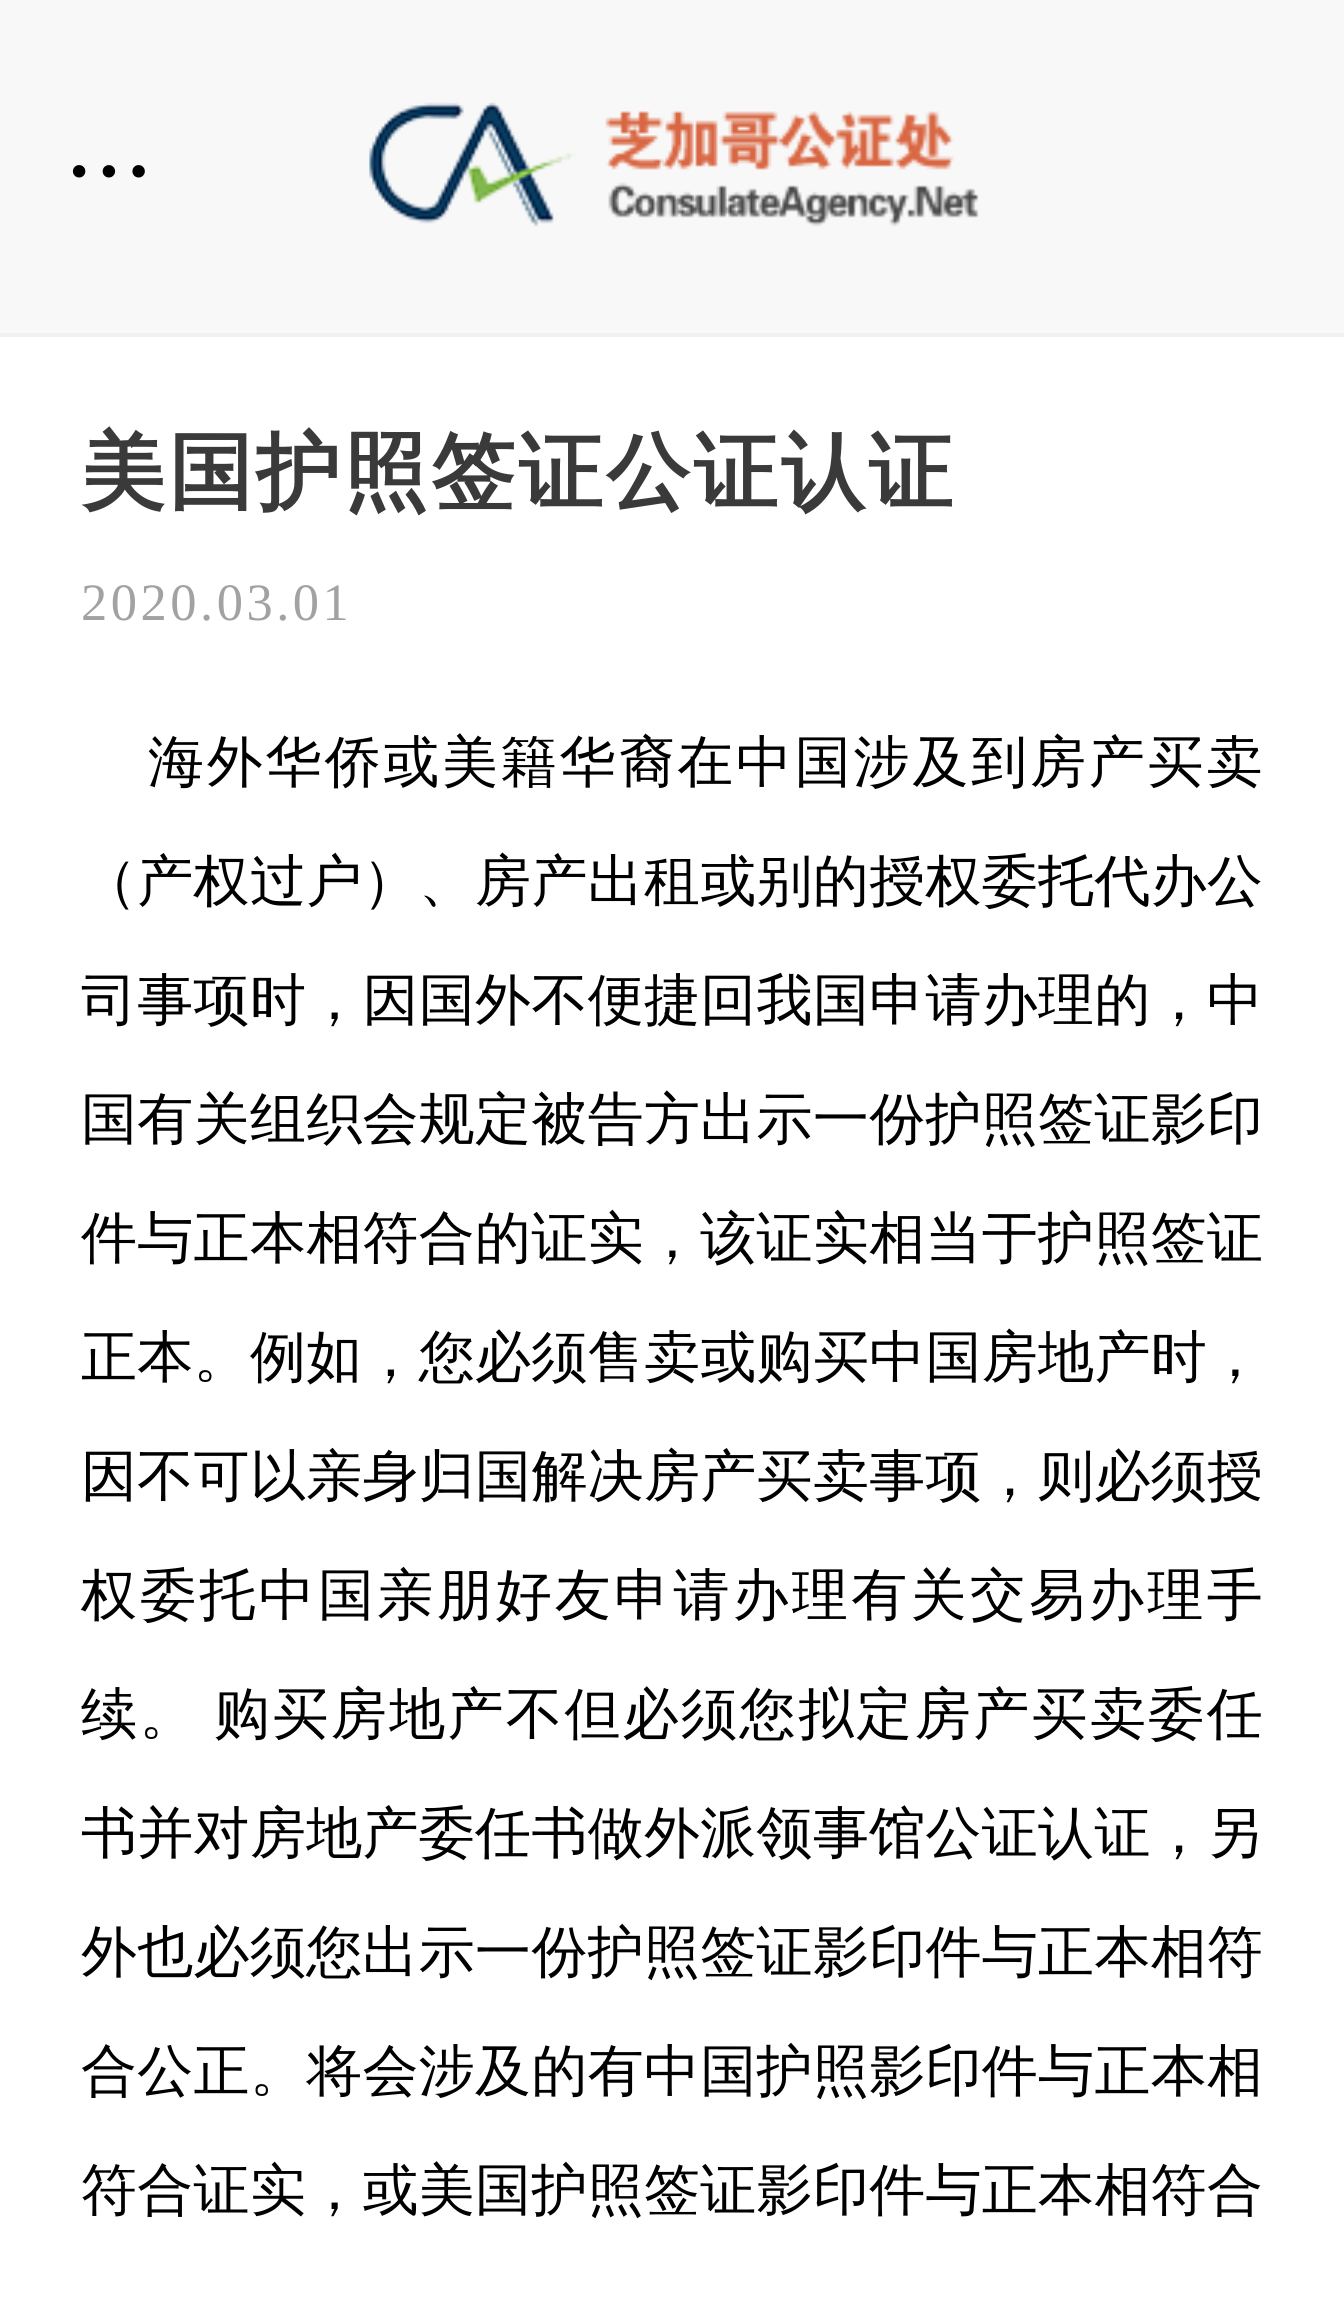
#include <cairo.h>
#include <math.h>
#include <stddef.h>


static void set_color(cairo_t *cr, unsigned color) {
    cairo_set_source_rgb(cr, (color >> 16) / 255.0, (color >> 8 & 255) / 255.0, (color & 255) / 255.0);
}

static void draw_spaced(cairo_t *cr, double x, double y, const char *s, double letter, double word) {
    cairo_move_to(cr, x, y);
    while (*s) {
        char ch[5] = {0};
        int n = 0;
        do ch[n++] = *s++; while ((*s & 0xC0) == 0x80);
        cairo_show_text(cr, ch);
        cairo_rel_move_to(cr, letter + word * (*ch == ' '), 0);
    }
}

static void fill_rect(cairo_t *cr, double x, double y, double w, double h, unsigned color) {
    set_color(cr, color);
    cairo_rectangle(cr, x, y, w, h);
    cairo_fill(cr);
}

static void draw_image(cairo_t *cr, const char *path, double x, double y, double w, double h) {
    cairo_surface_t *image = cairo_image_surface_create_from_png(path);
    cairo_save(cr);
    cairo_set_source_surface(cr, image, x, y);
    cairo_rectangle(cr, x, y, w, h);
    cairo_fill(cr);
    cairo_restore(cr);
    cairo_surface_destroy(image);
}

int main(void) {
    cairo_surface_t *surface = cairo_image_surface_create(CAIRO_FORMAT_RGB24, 1344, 2314);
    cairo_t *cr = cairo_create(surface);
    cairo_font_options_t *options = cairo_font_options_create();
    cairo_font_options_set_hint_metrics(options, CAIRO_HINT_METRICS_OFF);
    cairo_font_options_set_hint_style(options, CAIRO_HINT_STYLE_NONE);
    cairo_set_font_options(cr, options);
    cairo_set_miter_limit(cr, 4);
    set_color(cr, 0xFFFFFF);
    cairo_paint(cr);
    fill_rect(cr, 0, 0, 1344, 333, 0xF8F8F8);
    fill_rect(cr, 0, 333, 1344, 4, 0xF1F1F1);
    cairo_select_font_face(cr, "Liberation Serif", CAIRO_FONT_SLANT_NORMAL, CAIRO_FONT_WEIGHT_NORMAL);
    cairo_set_font_size(cr, 105);
    set_color(cr, 0x000000);
    draw_spaced(cr, 66, 176, "...", 3.5, 0);
    draw_image(cr, "assets/img1.png", 369, 102, 610, 125);
    cairo_select_font_face(cr, "WenQuanYi Zen Hei", CAIRO_FONT_SLANT_NORMAL, CAIRO_FONT_WEIGHT_BOLD);
    cairo_set_font_size(cr, 84);
    set_color(cr, 0x3A3A3A);
    draw_spaced(cr, 81, 501, "美国护照签证公证认证", 3.5, 0);
    cairo_select_font_face(cr, "Liberation Serif", CAIRO_FONT_SLANT_NORMAL, CAIRO_FONT_WEIGHT_NORMAL);
    cairo_set_font_size(cr, 52.5);
    set_color(cr, 0xA2A2A2);
    draw_spaced(cr, 81, 620, "2020.03.01", 3.5, 0);
    cairo_select_font_face(cr, "WenQuanYi Zen Hei Medium", CAIRO_FONT_SLANT_NORMAL, CAIRO_FONT_WEIGHT_NORMAL);
    cairo_set_font_size(cr, 56);
    set_color(cr, 0x000000);
    draw_spaced(cr, 148, 781, "海外华侨或美籍华裔在中国涉及到房产买卖", 2.8, 0);
    draw_spaced(cr, 81, 900, "（产权过户）、房产出租或别的授权委托代办公", 0.3, 0);
    draw_spaced(cr, 81, 1019, "司事项时，因国外不便捷回我国申请办理的，中", 0.3, 0);
    draw_spaced(cr, 81, 1138, "国有关组织会规定被告方出示一份护照签证影印", 0.3, 0);
    draw_spaced(cr, 81, 1257, "件与正本相符合的证实，该证实相当于护照签证", 0.3, 0);
    draw_spaced(cr, 81, 1376, "正本。例如，您必须售卖或购买中国房地产时，", 0.3, 0);
    draw_spaced(cr, 81, 1495, "因不可以亲身归国解决房产买卖事项，则必须授", 0.3, 0);
    draw_spaced(cr, 81, 1614, "权委托中国亲朋好友申请办理有关交易办理手", 3.25, 0);
    draw_spaced(cr, 81, 1733, "续。 购买房地产不但必须您拟定房产买卖委任", 2.4, -3);
    draw_spaced(cr, 81, 1852, "书并对房地产委任书做外派领事馆公证认证，另", 0.3, 0);
    draw_spaced(cr, 81, 1971, "外也必须您出示一份护照签证影印件与正本相符", 0.3, 0);
    draw_spaced(cr, 81, 2090, "合公正。将会涉及的有中国护照影印件与正本相", 0.3, 0);
    draw_spaced(cr, 81, 2209, "符合证实，或美国护照签证影印件与正本相符合", 0.3, 0);
    cairo_surface_write_to_png(surface, "output.png");
    cairo_font_options_destroy(options);
    cairo_destroy(cr);
    cairo_surface_destroy(surface);
    return 0;
}
